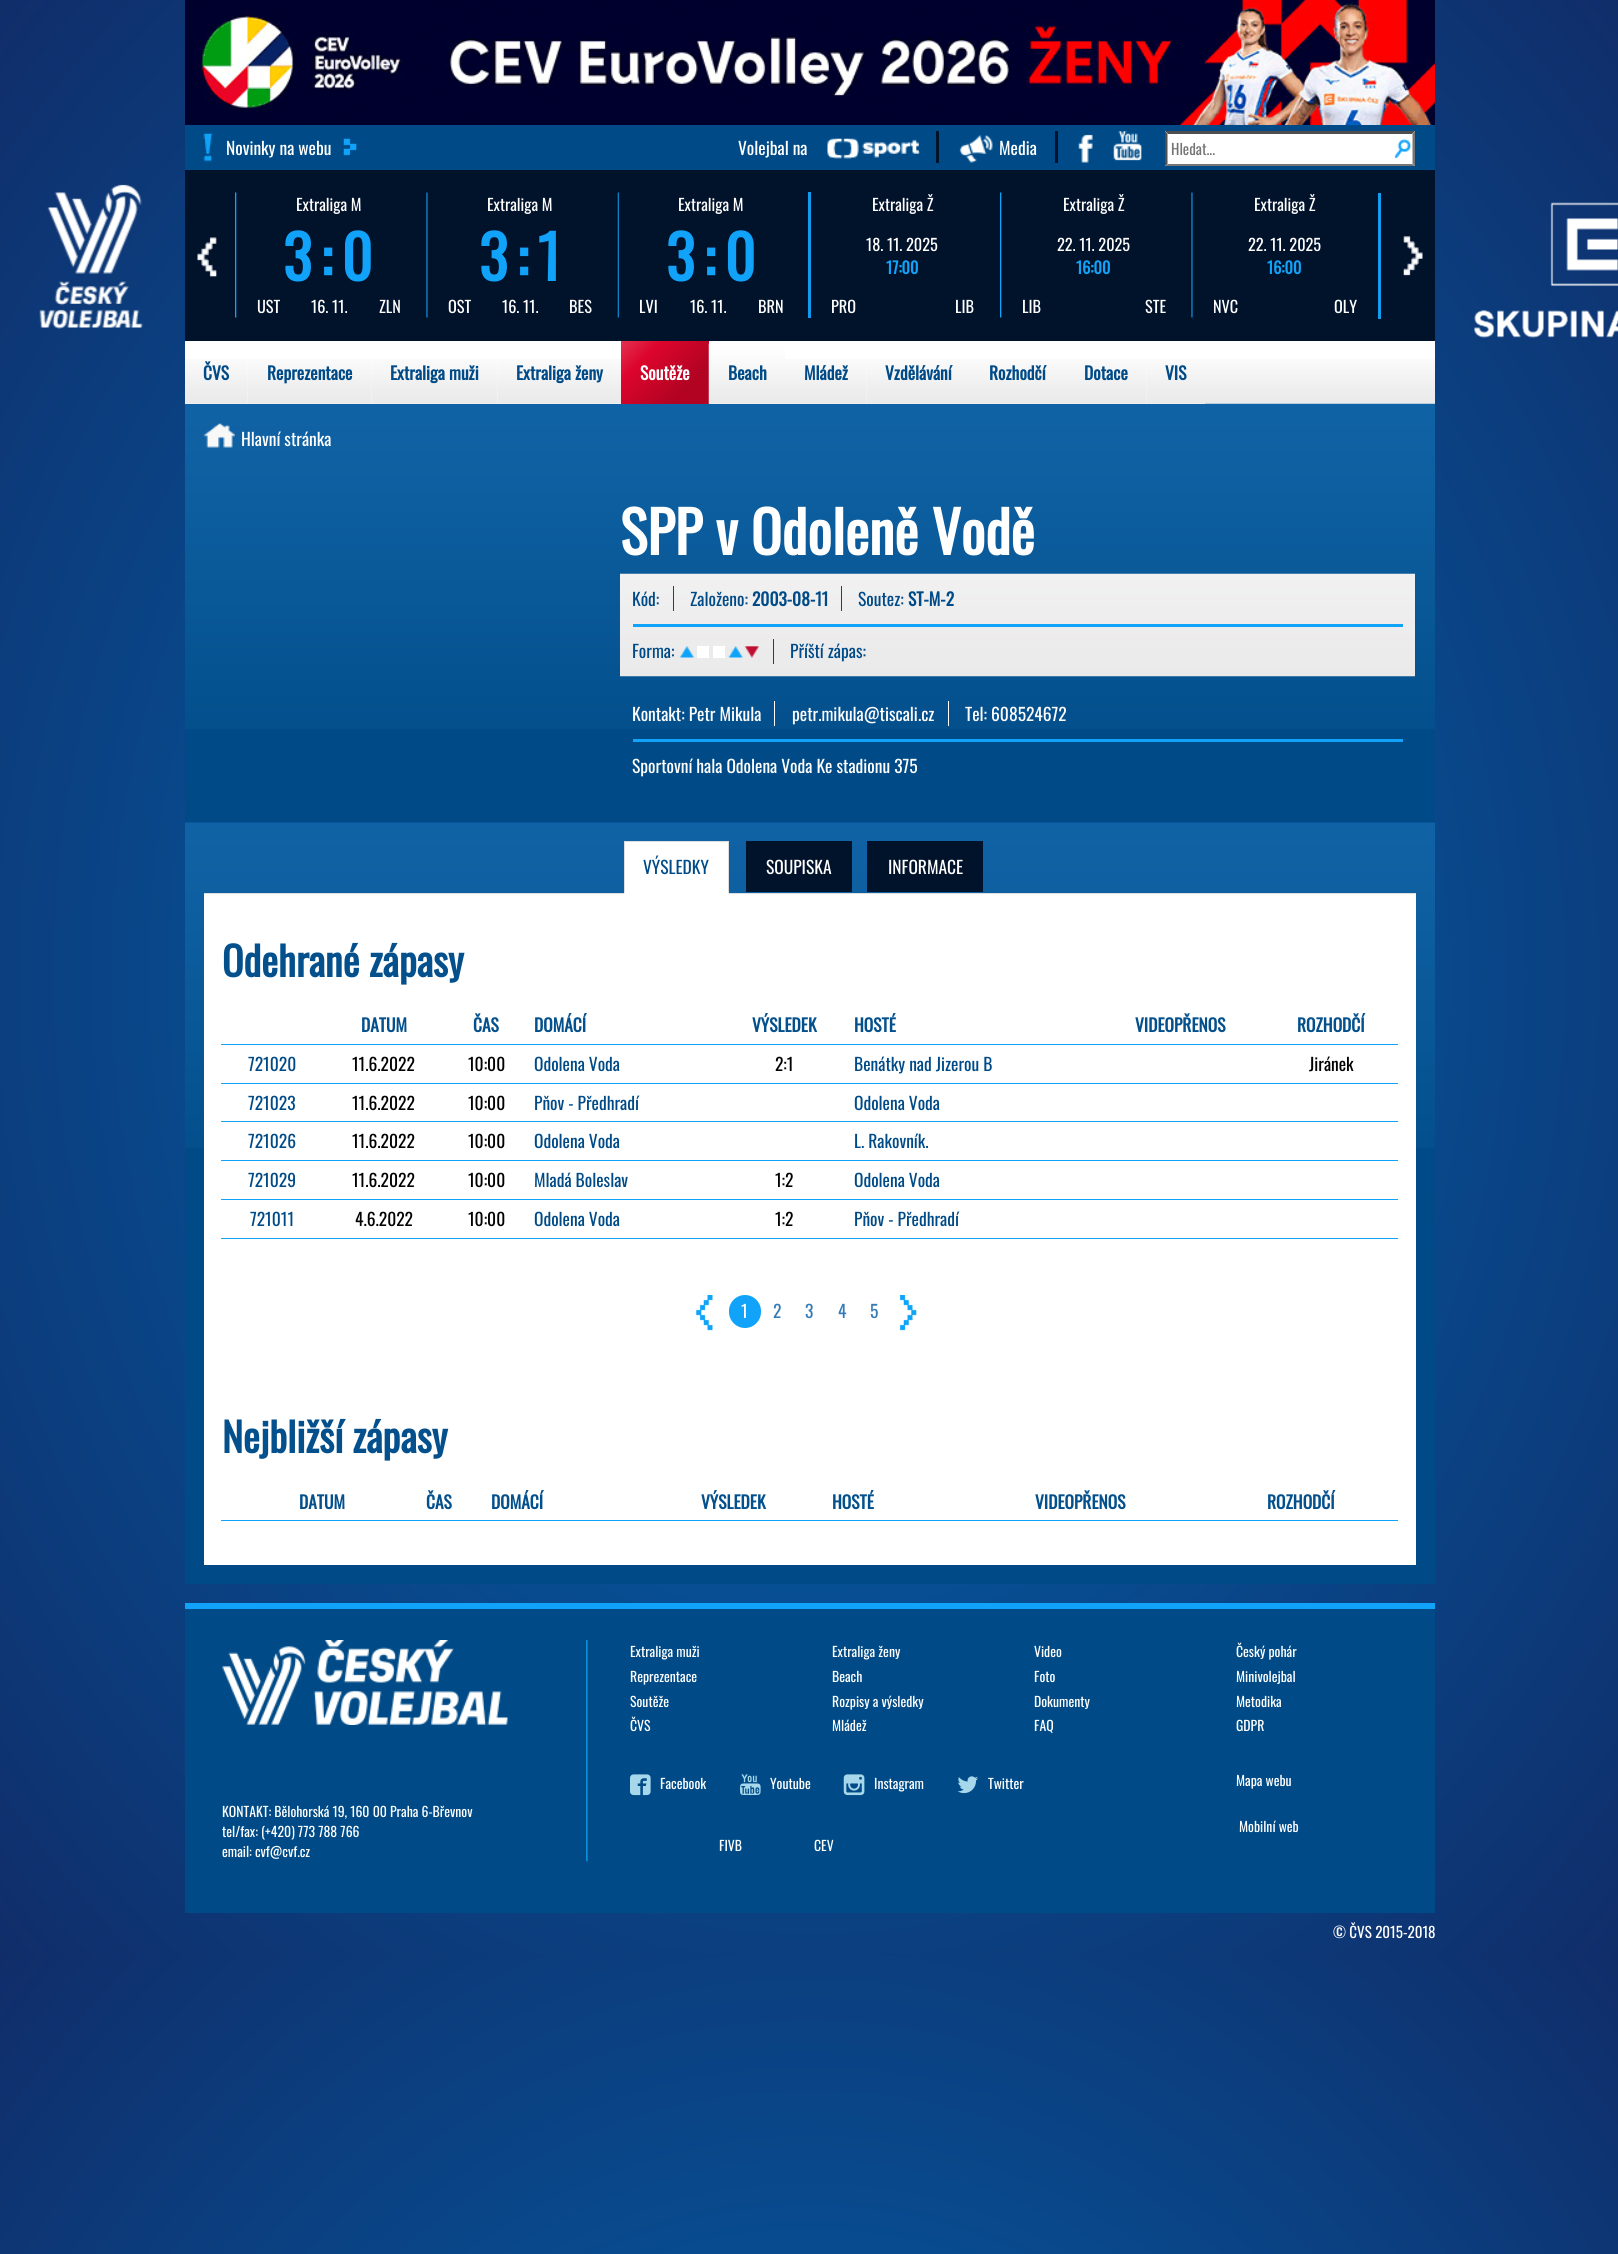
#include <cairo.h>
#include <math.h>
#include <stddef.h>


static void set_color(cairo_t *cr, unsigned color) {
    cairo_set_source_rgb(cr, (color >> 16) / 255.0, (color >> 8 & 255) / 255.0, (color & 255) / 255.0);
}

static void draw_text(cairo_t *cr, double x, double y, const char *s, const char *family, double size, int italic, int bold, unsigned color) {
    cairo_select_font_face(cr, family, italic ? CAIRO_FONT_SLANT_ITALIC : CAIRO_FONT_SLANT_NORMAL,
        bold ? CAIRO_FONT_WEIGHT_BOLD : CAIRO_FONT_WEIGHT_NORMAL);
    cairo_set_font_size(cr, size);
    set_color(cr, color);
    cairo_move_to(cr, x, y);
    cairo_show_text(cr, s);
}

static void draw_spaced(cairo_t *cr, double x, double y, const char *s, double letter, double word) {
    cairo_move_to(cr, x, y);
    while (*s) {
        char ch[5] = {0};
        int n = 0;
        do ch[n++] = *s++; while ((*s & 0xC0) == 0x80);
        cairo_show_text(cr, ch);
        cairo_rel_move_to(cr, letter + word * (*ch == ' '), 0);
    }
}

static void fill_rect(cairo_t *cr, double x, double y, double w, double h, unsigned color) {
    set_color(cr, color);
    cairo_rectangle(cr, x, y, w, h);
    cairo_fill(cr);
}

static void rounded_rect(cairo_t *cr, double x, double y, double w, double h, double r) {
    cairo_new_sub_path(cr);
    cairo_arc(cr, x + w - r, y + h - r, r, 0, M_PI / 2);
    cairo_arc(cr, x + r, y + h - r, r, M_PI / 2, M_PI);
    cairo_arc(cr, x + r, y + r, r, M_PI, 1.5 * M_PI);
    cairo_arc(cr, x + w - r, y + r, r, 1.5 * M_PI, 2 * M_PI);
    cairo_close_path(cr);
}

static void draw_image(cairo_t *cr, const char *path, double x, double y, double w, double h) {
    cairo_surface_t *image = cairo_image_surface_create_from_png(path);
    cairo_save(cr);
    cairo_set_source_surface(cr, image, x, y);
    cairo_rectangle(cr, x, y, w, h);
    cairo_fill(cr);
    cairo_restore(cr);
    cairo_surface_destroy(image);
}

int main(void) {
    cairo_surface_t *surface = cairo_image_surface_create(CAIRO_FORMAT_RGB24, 1618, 2254);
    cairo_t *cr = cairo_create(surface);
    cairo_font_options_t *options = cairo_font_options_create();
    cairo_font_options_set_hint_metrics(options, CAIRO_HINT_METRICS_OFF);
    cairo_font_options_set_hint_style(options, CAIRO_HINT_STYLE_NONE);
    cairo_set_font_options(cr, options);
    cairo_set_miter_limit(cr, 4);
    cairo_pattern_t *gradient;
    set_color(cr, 0xFFFFFF);
    cairo_paint(cr);
    gradient = cairo_pattern_create_radial(0, 0, 0, 0, 0, 1);
    cairo_pattern_set_matrix(gradient, &(cairo_matrix_t){1.0 / 1145, 0, 0, 1.0 / 1381, -1.0 * 809 / 1145, -1.0 * 976 / 1381});
    cairo_pattern_add_color_stop_rgba(gradient, 0, 0.063, 0.176, 0.412, 1);
    cairo_pattern_add_color_stop_rgba(gradient, 0, 0, 0.412, 0.706, 1);
    cairo_pattern_add_color_stop_rgba(gradient, 1, 0.063, 0.176, 0.412, 1);
    cairo_pattern_add_color_stop_rgba(gradient, 1, 0, 0.412, 0.706, 1);
    cairo_set_source(cr, gradient);
    cairo_pattern_destroy(gradient);
    cairo_rectangle(cr, 0, 0, 1618, 1953);
    cairo_fill(cr);
    gradient = cairo_pattern_create_radial(0, 0, 0, 0, 0, 1);
    cairo_pattern_set_matrix(gradient, &(cairo_matrix_t){1.0 / 1145, 0, 0, 1.0 / 1381, -1.0 * 809 / 1145, -1.0 * 2929 / 1381});
    cairo_pattern_add_color_stop_rgba(gradient, 0, 0.063, 0.176, 0.412, 1);
    cairo_pattern_add_color_stop_rgba(gradient, 0, 0, 0.412, 0.706, 1);
    cairo_pattern_add_color_stop_rgba(gradient, 1, 0.063, 0.176, 0.412, 1);
    cairo_pattern_add_color_stop_rgba(gradient, 1, 0, 0.412, 0.706, 1);
    cairo_set_source(cr, gradient);
    cairo_pattern_destroy(gradient);
    cairo_rectangle(cr, 0, 1953, 1618, 301);
    cairo_fill(cr);
    draw_image(cr, "assets/img1.png", 185, 0, 1250, 125);
    fill_rect(cr, 185, 125, 1250, 45, 0x004B87);
    draw_image(cr, "assets/img2.png", 203, 133, 10, 29);
    draw_text(cr, 226, 155, "Novinky na webu", "Oswald", 17.5, 0, 0, 0xFFFFFF);
    draw_image(cr, "assets/img3.png", 343, 138, 14, 18);
    draw_text(cr, 738, 155, "Volejbal na", "Oswald", 17.5, 0, 0, 0xFFFFFF);
    fill_rect(cr, 936, 131, 3, 32, 0x01122B);
    draw_image(cr, "assets/img4.png", 827, 138, 94, 21);
    draw_image(cr, "assets/img5.png", 959, 135, 34, 28);
    draw_text(cr, 999, 155, "Media", "Oswald", 17.5, 0, 0, 0xFFFFFF);
    fill_rect(cr, 1055, 131, 3, 32, 0x01122B);
    draw_image(cr, "assets/img6.png", 1078, 134, 15, 29);
    draw_image(cr, "assets/img7.png", 1113, 131, 29, 30);
    fill_rect(cr, 1165, 131, 250, 35, 0xFFFFFF);
    draw_image(cr, "assets/img8.png", 1394, 138, 18, 21);
    set_color(cr, 0x4F4F4F);
    cairo_new_path(cr);
    cairo_move_to(cr, 1165, 131);
    cairo_line_to(cr, 1415, 131);
    cairo_line_to(cr, 1412, 134);
    cairo_line_to(cr, 1168, 134);
    cairo_close_path(cr);
    cairo_fill(cr);
    set_color(cr, 0x767676);
    cairo_new_path(cr);
    cairo_move_to(cr, 1415, 131);
    cairo_line_to(cr, 1415, 166);
    cairo_line_to(cr, 1412.5, 164);
    cairo_line_to(cr, 1412.5, 134);
    cairo_close_path(cr);
    cairo_fill(cr);
    cairo_new_path(cr);
    cairo_move_to(cr, 1415, 166);
    cairo_line_to(cr, 1165, 166);
    cairo_line_to(cr, 1168, 164);
    cairo_line_to(cr, 1412, 164);
    cairo_close_path(cr);
    cairo_fill(cr);
    set_color(cr, 0x4F4F4F);
    cairo_new_path(cr);
    cairo_move_to(cr, 1165, 166);
    cairo_line_to(cr, 1165, 131);
    cairo_line_to(cr, 1167.5, 134);
    cairo_line_to(cr, 1167.5, 164);
    cairo_close_path(cr);
    cairo_fill(cr);
    draw_text(cr, 1171, 155, "Hledat...", "Oswald", 15, 0, 0, 0x757575);
    draw_image(cr, "assets/img9.png", 39, 184, 104, 145);
    fill_rect(cr, 185, 170, 1250, 171, 0x01122B);
    draw_image(cr, "assets/img10.png", 197, 237, 20, 40);
    fill_rect(cr, 1378, 193, 3, 126, 0x0F9AED);
    draw_image(cr, "assets/img11.png", 1379, 194, 1, 125);
    draw_image(cr, "assets/img12.png", 235, 192, 2, 126);
    draw_text(cr, 296, 211, "Extraliga M", "Oswald", 16.25, 0, 0, 0xFFFFFF);
    cairo_select_font_face(cr, "Oswald", CAIRO_FONT_SLANT_NORMAL, CAIRO_FONT_WEIGHT_BOLD);
    cairo_set_font_size(cr, 60);
    set_color(cr, 0x10A3F9);
    draw_spaced(cr, 283, 281, "3:0", 9, 0);
    draw_text(cr, 257, 313, "UST", "Oswald", 16.25, 0, 0, 0xFFFFFF);
    draw_text(cr, 311, 313, "16. 11.", "Oswald", 16.25, 0, 0, 0xFFFFFF);
    draw_text(cr, 379, 313, "ZLN", "Oswald", 16.25, 0, 0, 0xFFFFFF);
    draw_image(cr, "assets/img13.png", 426, 192, 2, 126);
    draw_text(cr, 487, 211, "Extraliga M", "Oswald", 16.25, 0, 0, 0xFFFFFF);
    cairo_select_font_face(cr, "Oswald", CAIRO_FONT_SLANT_NORMAL, CAIRO_FONT_WEIGHT_BOLD);
    cairo_set_font_size(cr, 60);
    set_color(cr, 0x10A3F9);
    draw_spaced(cr, 479, 281, "3:1", 9, 0);
    draw_text(cr, 448, 313, "OST", "Oswald", 16.25, 0, 0, 0xFFFFFF);
    draw_text(cr, 502, 313, "16. 11.", "Oswald", 16.25, 0, 0, 0xFFFFFF);
    draw_text(cr, 569, 313, "BES", "Oswald", 16.25, 0, 0, 0xFFFFFF);
    draw_image(cr, "assets/img14.png", 617, 192, 2, 126);
    draw_text(cr, 678, 211, "Extraliga M", "Oswald", 16.25, 0, 0, 0xFFFFFF);
    cairo_select_font_face(cr, "Oswald", CAIRO_FONT_SLANT_NORMAL, CAIRO_FONT_WEIGHT_BOLD);
    cairo_set_font_size(cr, 60);
    set_color(cr, 0x10A3F9);
    draw_spaced(cr, 666, 281, "3:0", 9, 0);
    draw_text(cr, 639, 313, "LVI", "Oswald", 16.25, 0, 0, 0xFFFFFF);
    draw_text(cr, 690, 313, "16. 11.", "Oswald", 16.25, 0, 0, 0xFFFFFF);
    draw_text(cr, 758, 313, "BRN", "Oswald", 16.25, 0, 0, 0xFFFFFF);
    fill_rect(cr, 808, 192, 3, 126, 0x0F9AED);
    draw_text(cr, 872, 211, "Extraliga Ž", "Oswald", 16.25, 0, 0, 0xFFFFFF);
    draw_text(cr, 866, 251, "18. 11. 2025", "Oswald", 16.25, 0, 0, 0xFFFFFF);
    draw_text(cr, 886, 274, "17:00", "Oswald", 16.25, 0, 1, 0x10A3F9);
    draw_text(cr, 831, 313, "PRO", "Oswald", 16.25, 0, 0, 0xFFFFFF);
    draw_text(cr, 955, 313, "LIB", "Oswald", 16.25, 0, 0, 0xFFFFFF);
    draw_image(cr, "assets/img12.png", 1000, 192, 2, 126);
    draw_text(cr, 1063, 211, "Extraliga Ž", "Oswald", 16.25, 0, 0, 0xFFFFFF);
    draw_text(cr, 1057, 251, "22. 11. 2025", "Oswald", 16.25, 0, 0, 0xFFFFFF);
    draw_text(cr, 1076, 274, "16:00", "Oswald", 16.25, 0, 1, 0x10A3F9);
    draw_text(cr, 1022, 313, "LIB", "Oswald", 16.25, 0, 0, 0xFFFFFF);
    draw_text(cr, 1145, 313, "STE", "Oswald", 16.25, 0, 0, 0xFFFFFF);
    draw_image(cr, "assets/img13.png", 1191, 192, 2, 126);
    draw_text(cr, 1254, 211, "Extraliga Ž", "Oswald", 16.25, 0, 0, 0xFFFFFF);
    draw_text(cr, 1248, 251, "22. 11. 2025", "Oswald", 16.25, 0, 0, 0xFFFFFF);
    draw_text(cr, 1267, 274, "16:00", "Oswald", 16.25, 0, 1, 0x10A3F9);
    draw_text(cr, 1213, 313, "NVC", "Oswald", 16.25, 0, 0, 0xFFFFFF);
    draw_text(cr, 1334, 313, "OLY", "Oswald", 16.25, 0, 0, 0xFFFFFF);
    draw_image(cr, "assets/img15.png", 1403, 236, 20, 40);
    draw_image(cr, "assets/img16.png", 1474, 202, 144, 136);
    fill_rect(cr, 1205, 341, 230, 63, 0xFFFFFF);
    draw_image(cr, "assets/img17.png", 1205, 359, 230, 45);
    draw_image(cr, "assets/img26.png", 185, 403, 1250, 326);
    fill_rect(cr, 185, 341, 1020, 63, 0xFFFFFF);
    draw_image(cr, "assets/img18.png", 185, 359, 63, 45);
    draw_text(cr, 203, 380, "ČVS", "Oswald", 17.5, 0, 1, 0x004B87);
    draw_image(cr, "assets/img19.png", 247, 359, 124, 45);
    draw_text(cr, 267, 380, "Reprezentace", "Oswald", 17.5, 0, 1, 0x004B87);
    draw_image(cr, "assets/img20.png", 371, 359, 127, 45);
    draw_text(cr, 390, 380, "Extraliga muži", "Oswald", 17.5, 0, 1, 0x004B87);
    draw_image(cr, "assets/img19.png", 497, 359, 124, 45);
    draw_text(cr, 516, 380, "Extraliga ženy", "Oswald", 17.5, 0, 1, 0x004B87);
    gradient = cairo_pattern_create_linear(628, 335, 703, 410);
    cairo_pattern_add_color_stop_rgba(gradient, 0, 0.973, 0.314, 0.196, 1);
    cairo_pattern_add_color_stop_rgba(gradient, 0, 0.89, 0.188, 0.314, 1);
    cairo_pattern_add_color_stop_rgba(gradient, 0.26, 0.867, 0.02, 0.173, 1);
    cairo_pattern_add_color_stop_rgba(gradient, 0.72, 0.702, 0.012, 0.137, 1);
    cairo_pattern_add_color_stop_rgba(gradient, 1, 0.702, 0.012, 0.137, 1);
    cairo_set_source(cr, gradient);
    cairo_pattern_destroy(gradient);
    cairo_rectangle(cr, 621, 341, 88, 63);
    cairo_fill(cr);
    draw_text(cr, 640, 380, "Soutěže", "Oswald", 17.5, 0, 1, 0xFFFFFF);
    draw_image(cr, "assets/img21.png", 708, 343, 77, 61);
    draw_text(cr, 728, 380, "Beach", "Oswald", 17.5, 0, 1, 0x004B87);
    draw_image(cr, "assets/img22.png", 785, 359, 81, 45);
    draw_text(cr, 804, 380, "Mládež", "Oswald", 17.5, 0, 1, 0x004B87);
    draw_image(cr, "assets/img23.png", 866, 359, 104, 45);
    draw_text(cr, 885, 380, "Vzdělávání", "Oswald", 17.5, 0, 1, 0x004B87);
    draw_image(cr, "assets/img24.png", 970, 359, 95, 45);
    draw_text(cr, 989, 380, "Rozhodčí", "Oswald", 17.5, 0, 1, 0x004B87);
    draw_image(cr, "assets/img22.png", 1065, 359, 81, 45);
    draw_text(cr, 1084, 380, "Dotace", "Oswald", 17.5, 0, 1, 0x004B87);
    draw_image(cr, "assets/img25.png", 1146, 359, 59, 45);
    draw_text(cr, 1165, 380, "VIS", "Oswald", 17.5, 0, 1, 0x004B87);
    fill_rect(cr, 185, 729, 1250, 94, 0x004B87);
    draw_image(cr, "assets/img27.png", 203, 423, 32, 25);
    draw_text(cr, 241, 446, "Hlavní stránka", "Oswald", 17.5, 0, 0, 0xFFFFFF);
    draw_text(cr, 620, 555, "SPP v Odoleně Vodě", "Oswald", 57.5, 0, 1, 0xFFFFFF);
    draw_image(cr, "assets/img28.png", 620, 573, 795, 104);
    fill_rect(cr, 673, 586, 1, 25, 0x004B87);
    draw_text(cr, 632, 606, "Kód:", "Oswald", 17.5, 0, 0, 0x004B87);
    fill_rect(cr, 841, 586, 1, 25, 0x004B87);
    draw_text(cr, 690, 606, "Založeno:", "Oswald", 17.5, 0, 0, 0x004B87);
    draw_text(cr, 752, 606, "2003-08-11", "Oswald", 17.5, 0, 1, 0x004B87);
    draw_text(cr, 858, 606, "Soutez:", "Oswald", 17.5, 0, 0, 0x004B87);
    draw_text(cr, 908, 606, "ST-M-2", "Oswald", 17.5, 0, 1, 0x004B87);
    fill_rect(cr, 633, 624, 770, 3, 0x10A3F9);
    fill_rect(cr, 773, 639, 1, 25, 0x004B87);
    draw_text(cr, 632, 658, "Forma:", "Oswald", 17.5, 0, 0, 0x004B87);
    draw_image(cr, "assets/img29.png", 679, 646, 15, 12);
    fill_rect(cr, 697, 646, 12, 12, 0xFFFFFF);
    fill_rect(cr, 713, 646, 12, 12, 0xFFFFFF);
    draw_image(cr, "assets/img30.png", 728, 646, 15, 12);
    draw_image(cr, "assets/img31.png", 744, 646, 15, 12);
    draw_text(cr, 790, 658, "Příští zápas:", "Oswald", 17.5, 0, 0, 0x004B87);
    fill_rect(cr, 774, 701, 1, 25, 0xFFFFFF);
    draw_text(cr, 632, 721, "Kontakt: Petr Mikula", "Oswald", 17.5, 0, 0, 0xFFFFFF);
    fill_rect(cr, 948, 701, 1, 25, 0xFFFFFF);
    draw_text(cr, 792, 721, "petr.mikula@tiscali.cz", "Oswald", 17.5, 0, 0, 0xFFFFFF);
    draw_text(cr, 965, 721, "Tel: 608524672", "Oswald", 17.5, 0, 0, 0xFFFFFF);
    fill_rect(cr, 633, 739, 770, 3, 0x10A3F9);
    draw_text(cr, 632, 773, "Sportovní hala Odolena Voda Ke stadionu 375", "Oswald", 17.5, 0, 0, 0xFFFFFF);
    fill_rect(cr, 185, 1148, 1250, 436, 0x004B87);
    draw_image(cr, "assets/img32.png", 185, 822, 1250, 326);
    fill_rect(cr, 204, 893, 1212, 1, 0xDDDDDD);
    fill_rect(cr, 624, 842, 105, 52, 0xFFFFFF);
    fill_rect(cr, 624, 841, 105, 1, 0xDDDDDD);
    cairo_new_path(cr);
    cairo_move_to(cr, 729, 841);
    cairo_line_to(cr, 729, 894);
    cairo_line_to(cr, 728, 892);
    cairo_line_to(cr, 728, 842);
    cairo_close_path(cr);
    cairo_fill(cr);
    cairo_new_path(cr);
    cairo_move_to(cr, 624, 894);
    cairo_line_to(cr, 624, 841);
    cairo_line_to(cr, 625, 842);
    cairo_line_to(cr, 625, 892);
    cairo_close_path(cr);
    cairo_fill(cr);
    draw_text(cr, 643, 874, "VÝSLEDKY", "Oswald", 17.5, 0, 0, 0x004B87);
    fill_rect(cr, 746, 841, 106, 51, 0x01122B);
    draw_text(cr, 766, 874, "SOUPISKA", "Oswald", 17.5, 0, 0, 0xFFFFFF);
    fill_rect(cr, 867, 841, 116, 51, 0x01122B);
    draw_text(cr, 888, 874, "INFORMACE", "Oswald", 17.5, 0, 0, 0xFFFFFF);
    fill_rect(cr, 204, 894, 1212, 671, 0xFFFFFF);
    draw_text(cr, 222, 977, "Odehrané zápasy", "Oswald", 40, 0, 1, 0x03508D);
    draw_text(cr, 361, 1032, "DATUM", "Oswald", 17.5, 0, 1, 0x03508D);
    draw_text(cr, 473, 1032, "ČAS", "Oswald", 17.5, 0, 1, 0x03508D);
    draw_text(cr, 534, 1032, "DOMÁCÍ", "Oswald", 17.5, 0, 1, 0x03508D);
    draw_text(cr, 752, 1032, "VÝSLEDEK", "Oswald", 17.5, 0, 1, 0x03508D);
    draw_text(cr, 854, 1032, "HOSTÉ", "Oswald", 17.5, 0, 1, 0x03508D);
    draw_text(cr, 1135, 1032, "VIDEOPŘENOS", "Oswald", 17.5, 0, 1, 0x03508D);
    fill_rect(cr, 221, 1044, 1177, 1, 0x10A3F9);
    draw_text(cr, 1297, 1032, "ROZHODČÍ", "Oswald", 17.5, 0, 1, 0x03508D);
    draw_text(cr, 248, 1071, "721020", "Oswald", 17.5, 0, 0, 0x004B87);
    draw_text(cr, 352, 1071, "11.6.2022", "Oswald", 17.5, 0, 0, 0x000000);
    draw_text(cr, 468, 1071, "10:00", "Oswald", 17.5, 0, 0, 0x000000);
    draw_text(cr, 534, 1071, "Odolena Voda", "Oswald", 17.5, 0, 0, 0x004B87);
    draw_text(cr, 775, 1071, "2:1", "Oswald", 17.5, 0, 0, 0x000000);
    draw_text(cr, 854, 1071, "Benátky nad Jizerou B", "Oswald", 17.5, 0, 0, 0x004B87);
    fill_rect(cr, 221, 1083, 1177, 1, 0x10A3F9);
    draw_text(cr, 1309, 1071, "Jiránek", "Oswald", 17.5, 0, 0, 0x000000);
    draw_text(cr, 248, 1110, "721023", "Oswald", 17.5, 0, 0, 0x004B87);
    draw_text(cr, 352, 1110, "11.6.2022", "Oswald", 17.5, 0, 0, 0x000000);
    draw_text(cr, 468, 1110, "10:00", "Oswald", 17.5, 0, 0, 0x000000);
    draw_text(cr, 534, 1110, "Pňov - Předhradí", "Oswald", 17.5, 0, 0, 0x004B87);
    draw_text(cr, 854, 1110, "Odolena Voda", "Oswald", 17.5, 0, 0, 0x004B87);
    fill_rect(cr, 221, 1121, 1177, 1, 0x10A3F9);
    draw_text(cr, 248, 1148, "721026", "Oswald", 17.5, 0, 0, 0x004B87);
    draw_text(cr, 352, 1148, "11.6.2022", "Oswald", 17.5, 0, 0, 0x000000);
    draw_text(cr, 468, 1148, "10:00", "Oswald", 17.5, 0, 0, 0x000000);
    draw_text(cr, 534, 1148, "Odolena Voda", "Oswald", 17.5, 0, 0, 0x004B87);
    draw_text(cr, 854, 1148, "L. Rakovník.", "Oswald", 17.5, 0, 0, 0x004B87);
    fill_rect(cr, 221, 1160, 1177, 1, 0x10A3F9);
    draw_text(cr, 248, 1187, "721029", "Oswald", 17.5, 0, 0, 0x004B87);
    draw_text(cr, 352, 1187, "11.6.2022", "Oswald", 17.5, 0, 0, 0x000000);
    draw_text(cr, 468, 1187, "10:00", "Oswald", 17.5, 0, 0, 0x000000);
    draw_text(cr, 534, 1187, "Mladá Boleslav", "Oswald", 17.5, 0, 0, 0x004B87);
    draw_text(cr, 775, 1187, "1:2", "Oswald", 17.5, 0, 0, 0x000000);
    draw_text(cr, 854, 1187, "Odolena Voda", "Oswald", 17.5, 0, 0, 0x004B87);
    fill_rect(cr, 221, 1199, 1177, 1, 0x10A3F9);
    draw_text(cr, 250, 1226, "721011", "Oswald", 17.5, 0, 0, 0x004B87);
    draw_text(cr, 355, 1226, "4.6.2022", "Oswald", 17.5, 0, 0, 0x000000);
    draw_text(cr, 468, 1226, "10:00", "Oswald", 17.5, 0, 0, 0x000000);
    draw_text(cr, 534, 1226, "Odolena Voda", "Oswald", 17.5, 0, 0, 0x004B87);
    draw_text(cr, 775, 1226, "1:2", "Oswald", 17.5, 0, 0, 0x000000);
    draw_text(cr, 854, 1226, "Pňov - Předhradí", "Oswald", 17.5, 0, 0, 0x004B87);
    fill_rect(cr, 221, 1238, 1177, 1, 0x10A3F9);
    draw_image(cr, "assets/img33.png", 696, 1295, 17, 36);
    rounded_rect(cr, 729, 1295, 32, 33, 16);
    cairo_fill(cr);
    draw_text(cr, 741, 1318, "1", "Oswald", 17.5, 0, 0, 0xFFFFFF);
    draw_text(cr, 773, 1318, "2", "Oswald", 17.5, 0, 0, 0x337AB7);
    draw_text(cr, 805, 1318, "3", "Oswald", 17.5, 0, 0, 0x337AB7);
    draw_text(cr, 838, 1318, "4", "Oswald", 17.5, 0, 0, 0x337AB7);
    draw_text(cr, 870, 1318, "5", "Oswald", 17.5, 0, 0, 0x337AB7);
    draw_image(cr, "assets/img34.png", 899, 1295, 18, 36);
    draw_text(cr, 222, 1453, "Nejbližší zápasy", "Oswald", 40, 0, 1, 0x03508D);
    draw_text(cr, 299, 1509, "DATUM", "Oswald", 17.5, 0, 1, 0x03508D);
    draw_text(cr, 426, 1509, "ČAS", "Oswald", 17.5, 0, 1, 0x03508D);
    draw_text(cr, 491, 1509, "DOMÁCÍ", "Oswald", 17.5, 0, 1, 0x03508D);
    draw_text(cr, 701, 1509, "VÝSLEDEK", "Oswald", 17.5, 0, 1, 0x03508D);
    draw_text(cr, 832, 1509, "HOSTÉ", "Oswald", 17.5, 0, 1, 0x03508D);
    draw_text(cr, 1035, 1509, "VIDEOPŘENOS", "Oswald", 17.5, 0, 1, 0x03508D);
    fill_rect(cr, 221, 1520, 1177, 1, 0x10A3F9);
    draw_text(cr, 1267, 1509, "ROZHODČÍ", "Oswald", 17.5, 0, 1, 0x03508D);
    fill_rect(cr, 185, 1609, 1250, 304, 0x004B87);
    fill_rect(cr, 185, 1603, 1250, 6, 0x10A3F9);
    draw_text(cr, 630, 1657, "Extraliga muži", "Oswald", 13.75, 0, 0, 0xFFFFFF);
    draw_text(cr, 630, 1682, "Reprezentace", "Oswald", 13.75, 0, 0, 0xFFFFFF);
    draw_text(cr, 630, 1707, "Soutěže", "Oswald", 13.75, 0, 0, 0xFFFFFF);
    draw_text(cr, 630, 1731, "ČVS", "Oswald", 13.75, 0, 0, 0xFFFFFF);
    draw_text(cr, 832, 1657, "Extraliga ženy", "Oswald", 13.75, 0, 0, 0xFFFFFF);
    draw_text(cr, 832, 1682, "Beach", "Oswald", 13.75, 0, 0, 0xFFFFFF);
    draw_text(cr, 832, 1707, "Rozpisy a výsledky", "Oswald", 13.75, 0, 0, 0xFFFFFF);
    draw_text(cr, 832, 1731, "Mládež", "Oswald", 13.75, 0, 0, 0xFFFFFF);
    draw_text(cr, 1034, 1657, "Video", "Oswald", 13.75, 0, 0, 0xFFFFFF);
    draw_text(cr, 1034, 1682, "Foto", "Oswald", 13.75, 0, 0, 0xFFFFFF);
    draw_text(cr, 1034, 1707, "Dokumenty", "Oswald", 13.75, 0, 0, 0xFFFFFF);
    draw_text(cr, 1034, 1731, "FAQ", "Oswald", 13.75, 0, 0, 0xFFFFFF);
    draw_text(cr, 1236, 1657, "Český pohár", "Oswald", 13.75, 0, 0, 0xFFFFFF);
    draw_text(cr, 1236, 1682, "Minivolejbal", "Oswald", 13.75, 0, 0, 0xFFFFFF);
    draw_text(cr, 1236, 1707, "Metodika", "Oswald", 13.75, 0, 0, 0xFFFFFF);
    draw_text(cr, 1236, 1731, "GDPR", "Oswald", 13.75, 0, 0, 0xFFFFFF);
    draw_image(cr, "assets/img35.png", 586, 1640, 2, 222);
    draw_image(cr, "assets/img36.png", 222, 1640, 286, 85);
    draw_text(cr, 222, 1817, "KONTAKT: Bělohorská 19, 160 00 Praha 6-Břevnov", "Oswald", 13.75, 0, 0, 0xFFFFFF);
    draw_text(cr, 222, 1837, "tel/fax: (+420) 773 788 766", "Oswald", 13.75, 0, 0, 0xFFFFFF);
    draw_text(cr, 222, 1857, "email: cvf@cvf.cz", "Oswald", 13.75, 0, 0, 0xFFFFFF);
    draw_image(cr, "assets/img37.png", 630, 1774, 21, 22);
    draw_text(cr, 660, 1789, "Facebook", "Oswald", 13.75, 0, 0, 0xFFFFFF);
    draw_image(cr, "assets/img38.png", 740, 1774, 21, 22);
    draw_text(cr, 770, 1789, "Youtube", "Oswald", 13.75, 0, 0, 0xFFFFFF);
    draw_image(cr, "assets/img39.png", 843, 1774, 22, 22);
    draw_text(cr, 874, 1789, "Instagram", "Oswald", 13.75, 0, 0, 0xFFFFFF);
    draw_image(cr, "assets/img40.png", 957, 1776, 21, 18);
    draw_text(cr, 988, 1789, "Twitter", "Oswald", 13.75, 0, 0, 0xFFFFFF);
    draw_text(cr, 719, 1851, "FIVB", "Oswald", 13.75, 0, 0, 0xFFFFFF);
    draw_text(cr, 814, 1851, "CEV", "Oswald", 13.75, 0, 0, 0xFFFFFF);
    draw_text(cr, 1236, 1786, "Mapa webu", "Oswald", 13.75, 0, 0, 0xFFFFFF);
    draw_text(cr, 1239, 1832, "Mobilní web", "Oswald", 13.75, 0, 0, 0xFFFFFF);
    draw_text(cr, 1333, 1938, "© ČVS 2015-2018", "Oswald", 15, 0, 0, 0xFFFFFF);
    cairo_surface_write_to_png(surface, "output.png");
    cairo_font_options_destroy(options);
    cairo_destroy(cr);
    cairo_surface_destroy(surface);
    return 0;
}
